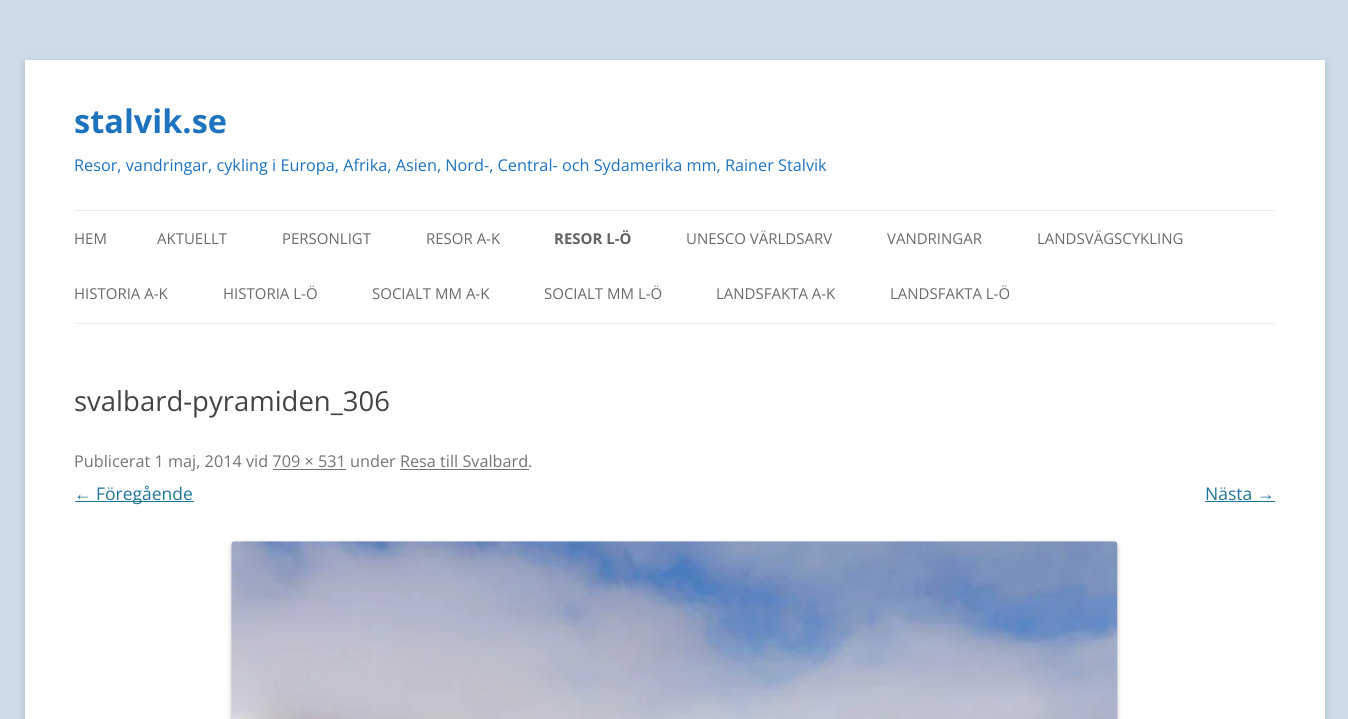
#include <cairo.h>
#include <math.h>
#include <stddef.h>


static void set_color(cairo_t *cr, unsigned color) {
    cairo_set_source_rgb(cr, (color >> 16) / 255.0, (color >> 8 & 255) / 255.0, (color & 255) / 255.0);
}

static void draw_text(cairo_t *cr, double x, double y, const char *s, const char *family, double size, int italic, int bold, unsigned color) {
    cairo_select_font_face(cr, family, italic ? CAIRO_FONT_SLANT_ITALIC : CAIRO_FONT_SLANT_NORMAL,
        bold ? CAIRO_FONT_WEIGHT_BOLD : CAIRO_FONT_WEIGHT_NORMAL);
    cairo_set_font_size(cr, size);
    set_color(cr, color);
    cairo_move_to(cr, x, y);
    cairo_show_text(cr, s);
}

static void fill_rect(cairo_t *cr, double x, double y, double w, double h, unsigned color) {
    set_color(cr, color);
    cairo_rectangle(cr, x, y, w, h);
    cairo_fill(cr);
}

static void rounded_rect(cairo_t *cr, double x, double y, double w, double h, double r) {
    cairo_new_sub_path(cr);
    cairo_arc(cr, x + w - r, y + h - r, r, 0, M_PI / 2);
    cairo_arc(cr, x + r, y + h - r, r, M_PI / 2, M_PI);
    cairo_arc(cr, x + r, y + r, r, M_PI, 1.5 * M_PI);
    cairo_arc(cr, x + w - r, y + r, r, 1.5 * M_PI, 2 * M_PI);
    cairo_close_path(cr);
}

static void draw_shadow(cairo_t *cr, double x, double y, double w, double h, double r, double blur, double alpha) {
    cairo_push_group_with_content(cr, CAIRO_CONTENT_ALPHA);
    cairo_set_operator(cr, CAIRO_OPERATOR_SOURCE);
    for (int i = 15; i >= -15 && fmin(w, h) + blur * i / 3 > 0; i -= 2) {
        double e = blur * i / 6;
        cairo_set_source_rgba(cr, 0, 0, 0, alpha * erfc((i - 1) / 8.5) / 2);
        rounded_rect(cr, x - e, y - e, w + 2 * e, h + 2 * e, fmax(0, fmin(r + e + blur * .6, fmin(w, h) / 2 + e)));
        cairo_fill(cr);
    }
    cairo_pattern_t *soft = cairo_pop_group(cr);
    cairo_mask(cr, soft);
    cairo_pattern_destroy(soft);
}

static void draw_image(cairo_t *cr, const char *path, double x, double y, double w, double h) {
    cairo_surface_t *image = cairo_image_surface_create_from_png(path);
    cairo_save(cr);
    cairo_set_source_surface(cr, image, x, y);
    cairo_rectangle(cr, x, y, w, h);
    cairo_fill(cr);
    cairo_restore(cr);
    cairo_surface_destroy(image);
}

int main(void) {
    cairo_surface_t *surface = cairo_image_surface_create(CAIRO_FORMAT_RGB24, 1348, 719);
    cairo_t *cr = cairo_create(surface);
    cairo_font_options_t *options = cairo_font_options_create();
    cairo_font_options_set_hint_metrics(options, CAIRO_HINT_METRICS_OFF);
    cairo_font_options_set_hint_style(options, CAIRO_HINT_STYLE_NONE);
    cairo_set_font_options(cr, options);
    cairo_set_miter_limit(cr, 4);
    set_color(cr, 0xCCDCE8);
    cairo_paint(cr);
    set_color(cr, 0x646464);
    draw_shadow(cr, 25, 63, 1300, 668, 0, 4, 0.3);
    fill_rect(cr, 25, 60, 1300, 659, 0xFFFFFF);
    draw_text(cr, 74, 133, "stalvik.se", "Open Sans", 32.5, 0, 1, 0x1E73BE);
    draw_text(cr, 74, 171, "Resor, vandringar, cykling i Europa, Afrika, Asien, Nord-, Central- och Sydamerika mm, Rainer Stalvik", "Open Sans", 16.25, 0, 0, 0x1E73BE);
    fill_rect(cr, 75, 210, 1200, 1, 0xEDEDED);
    fill_rect(cr, 75, 323, 1200, 1, 0xEDEDED);
    draw_text(cr, 74, 244, "HEM", "Open Sans", 15, 0, 0, 0x6A6A6A);
    draw_text(cr, 157, 244, "AKTUELLT", "Open Sans", 15, 0, 0, 0x6A6A6A);
    draw_text(cr, 282, 244, "PERSONLIGT", "Open Sans", 15, 0, 0, 0x6A6A6A);
    draw_text(cr, 426, 244, "RESOR A-K", "Open Sans", 15, 0, 0, 0x6A6A6A);
    draw_text(cr, 554, 244, "RESOR L-Ö", "Open Sans", 15, 0, 1, 0x636363);
    draw_text(cr, 686, 244, "UNESCO VÄRLDSARV", "Open Sans", 15, 0, 0, 0x6A6A6A);
    draw_text(cr, 887, 244, "VANDRINGAR", "Open Sans", 15, 0, 0, 0x6A6A6A);
    draw_text(cr, 1037, 244, "LANDSVÄGSCYKLING", "Open Sans", 15, 0, 0, 0x6A6A6A);
    draw_text(cr, 74, 299, "HISTORIA A-K", "Open Sans", 15, 0, 0, 0x6A6A6A);
    draw_text(cr, 223, 299, "HISTORIA L-Ö", "Open Sans", 15, 0, 0, 0x6A6A6A);
    draw_text(cr, 372, 299, "SOCIALT MM A-K", "Open Sans", 15, 0, 0, 0x6A6A6A);
    draw_text(cr, 544, 299, "SOCIALT MM L-Ö", "Open Sans", 15, 0, 0, 0x6A6A6A);
    draw_text(cr, 716, 299, "LANDSFAKTA A-K", "Open Sans", 15, 0, 0, 0x6A6A6A);
    draw_text(cr, 890, 299, "LANDSFAKTA L-Ö", "Open Sans", 15, 0, 0, 0x6A6A6A);
    draw_text(cr, 74, 411, "svalbard-pyramiden_306", "Open Sans", 27.5, 0, 0, 0x444444);
    draw_text(cr, 74, 467, "Publicerat 1 maj, 2014 vid 709 × 531 under Resa till Svalbard.", "Open Sans", 16.25, 0, 0, 0x757575);
    fill_rect(cr, 273, 469, 73, 1, 0x757575);
    fill_rect(cr, 400, 469, 129, 1, 0x757575);
    draw_text(cr, 74, 500, "←", "Liberation Sans", 17.5, 0, 0, 0x21759B);
    fill_rect(cr, 75, 501, 119, 1, 0x21759B);
    draw_text(cr, 96, 500, "Föregående", "Open Sans", 17.5, 0, 0, 0x21759B);
    draw_text(cr, 1205, 500, "Nästa", "Open Sans", 17.5, 0, 0, 0x21759B);
    draw_text(cr, 1257, 500, "→", "Liberation Sans", 17.5, 0, 0, 0x21759B);
    fill_rect(cr, 1205, 501, 70, 1, 0x21759B);
    set_color(cr, 0x000000);
    draw_shadow(cr, 231, 543, 887, 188, 4, 2.5, 0.2);
    draw_image(cr, "assets/img1.png", 231, 541, 887, 178);
    cairo_surface_write_to_png(surface, "output.png");
    cairo_font_options_destroy(options);
    cairo_destroy(cr);
    cairo_surface_destroy(surface);
    return 0;
}
